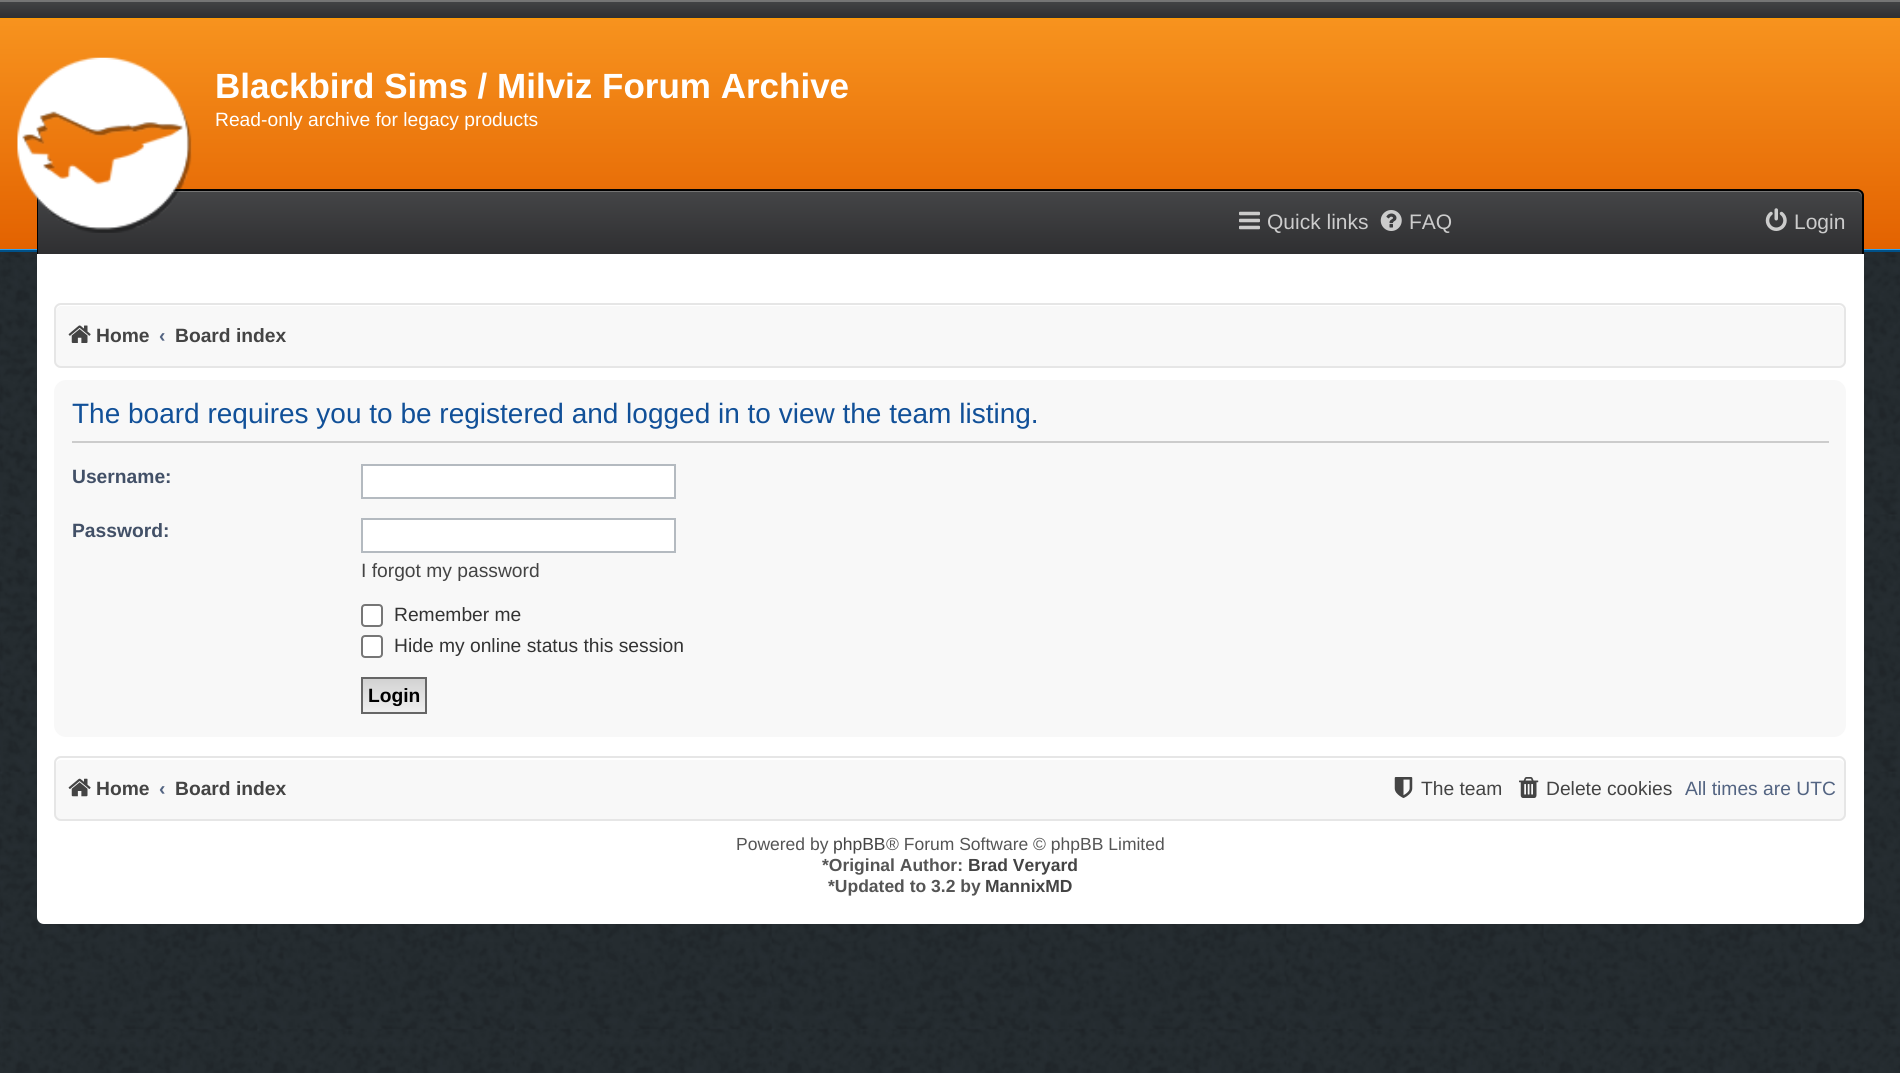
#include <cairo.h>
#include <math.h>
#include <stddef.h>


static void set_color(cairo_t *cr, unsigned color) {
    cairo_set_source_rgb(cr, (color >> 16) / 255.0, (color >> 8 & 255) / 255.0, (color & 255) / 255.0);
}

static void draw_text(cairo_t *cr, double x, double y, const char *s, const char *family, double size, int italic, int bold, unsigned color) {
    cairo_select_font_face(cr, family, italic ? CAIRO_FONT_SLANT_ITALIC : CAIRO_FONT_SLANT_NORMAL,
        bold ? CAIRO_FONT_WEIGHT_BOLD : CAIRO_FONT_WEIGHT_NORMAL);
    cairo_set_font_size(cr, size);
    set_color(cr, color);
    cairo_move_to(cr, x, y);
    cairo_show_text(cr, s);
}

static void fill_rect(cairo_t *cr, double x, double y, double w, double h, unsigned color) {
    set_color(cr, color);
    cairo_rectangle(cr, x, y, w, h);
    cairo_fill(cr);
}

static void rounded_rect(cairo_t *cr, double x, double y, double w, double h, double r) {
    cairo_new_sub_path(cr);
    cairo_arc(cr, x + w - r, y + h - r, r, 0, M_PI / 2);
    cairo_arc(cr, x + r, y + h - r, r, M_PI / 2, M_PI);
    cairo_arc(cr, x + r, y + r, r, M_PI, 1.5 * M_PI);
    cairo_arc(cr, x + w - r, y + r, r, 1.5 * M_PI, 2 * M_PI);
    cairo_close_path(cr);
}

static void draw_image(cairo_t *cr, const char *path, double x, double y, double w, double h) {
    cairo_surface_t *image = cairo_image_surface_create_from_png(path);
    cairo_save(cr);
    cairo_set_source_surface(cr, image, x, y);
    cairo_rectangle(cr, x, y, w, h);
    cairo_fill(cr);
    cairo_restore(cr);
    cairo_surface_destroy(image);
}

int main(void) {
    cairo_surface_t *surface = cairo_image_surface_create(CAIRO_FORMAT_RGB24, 1900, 1073);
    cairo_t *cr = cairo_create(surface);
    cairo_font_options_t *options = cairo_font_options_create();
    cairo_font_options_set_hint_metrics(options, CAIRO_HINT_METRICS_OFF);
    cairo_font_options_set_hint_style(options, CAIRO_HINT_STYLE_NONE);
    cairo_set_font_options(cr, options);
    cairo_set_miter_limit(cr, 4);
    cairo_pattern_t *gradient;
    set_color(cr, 0xFFFFFF);
    cairo_paint(cr);
    draw_image(cr, "assets/img1.png", 0, 945, 1900, 128);
    draw_image(cr, "assets/img2.png", 0, 252, 1900, 693);
    gradient = cairo_pattern_create_linear(950, 0, 950, 18);
    cairo_pattern_add_color_stop_rgba(gradient, 0, 0.267, 0.271, 0.278, 1);
    cairo_pattern_add_color_stop_rgba(gradient, 1, 0.184, 0.184, 0.192, 1);
    cairo_set_source(cr, gradient);
    cairo_pattern_destroy(gradient);
    cairo_rectangle(cr, 0, 2, 1900, 16);
    cairo_fill(cr);
    fill_rect(cr, 0, 0, 1900, 2, 0x757575);
    fill_rect(cr, 0, 18, 1900, 1, 0xFF9900);
    gradient = cairo_pattern_create_linear(950, 19, 950, 250);
    cairo_pattern_add_color_stop_rgba(gradient, 0, 0.969, 0.576, 0.118, 1);
    cairo_pattern_add_color_stop_rgba(gradient, 1, 0.89, 0.384, 0, 1);
    cairo_set_source(cr, gradient);
    cairo_pattern_destroy(gradient);
    cairo_rectangle(cr, 0, 19, 1900, 230);
    cairo_fill(cr);
    fill_rect(cr, 0, 249, 1900, 1, 0x33A0ED);
    fill_rect(cr, 0, 250, 1900, 2, 0x005189);
    cairo_save(cr);
    cairo_new_path(cr);
    cairo_move_to(cr, 44, 189);
    cairo_line_to(cr, 1857, 189);
    cairo_curve_to(cr, 1861, 189, 1864, 192, 1864, 196);
    cairo_line_to(cr, 1864, 254);
    cairo_line_to(cr, 37, 254);
    cairo_line_to(cr, 37, 196);
    cairo_curve_to(cr, 37, 192, 40, 189, 44, 189);
    cairo_close_path(cr);
    cairo_clip(cr);
    gradient = cairo_pattern_create_linear(950, 191, 950, 254);
    cairo_pattern_add_color_stop_rgba(gradient, 0, 0.267, 0.271, 0.278, 1);
    cairo_pattern_add_color_stop_rgba(gradient, 1, 0.184, 0.184, 0.192, 1);
    cairo_set_source(cr, gradient);
    cairo_pattern_destroy(gradient);
    cairo_rectangle(cr, 37, 191, 1827, 63);
    cairo_fill(cr);
    cairo_restore(cr);
    set_color(cr, 0x757575);
    cairo_new_path(cr);
    cairo_move_to(cr, 44, 192);
    cairo_line_to(cr, 1857, 192);
    cairo_curve_to(cr, 1860, 192, 1862, 195, 1862, 198);
    cairo_line_to(cr, 1862, 196);
    cairo_curve_to(cr, 1862, 193, 1860, 191, 1857, 191);
    cairo_line_to(cr, 44, 191);
    cairo_curve_to(cr, 42, 191, 40, 193, 39, 195);
    cairo_curve_to(cr, 40, 193, 42, 192, 44, 192);
    cairo_close_path(cr);
    cairo_fill(cr);
    set_color(cr, 0x000000);
    cairo_set_fill_rule(cr, CAIRO_FILL_RULE_EVEN_ODD);
    cairo_new_path(cr);
    cairo_move_to(cr, 44, 189);
    cairo_line_to(cr, 1857, 189);
    cairo_curve_to(cr, 1861, 189, 1864, 192, 1864, 196);
    cairo_line_to(cr, 1864, 254);
    cairo_line_to(cr, 37, 254);
    cairo_line_to(cr, 37, 196);
    cairo_curve_to(cr, 37, 192, 40, 189, 44, 189);
    cairo_close_path(cr);
    cairo_move_to(cr, 44, 191);
    cairo_line_to(cr, 1857, 191);
    cairo_curve_to(cr, 1860, 191, 1862, 193, 1862, 196);
    cairo_line_to(cr, 1862, 254);
    cairo_line_to(cr, 38, 254);
    cairo_line_to(cr, 38, 196);
    cairo_curve_to(cr, 38, 193, 41, 191, 44, 191);
    cairo_close_path(cr);
    cairo_fill(cr);
    draw_image(cr, "assets/img3.png", 17, 57, 175, 176);
    draw_text(cr, 215, 98, "Blackbird Sims / Milviz Forum Archive", "Liberation Sans", 35, 0, 1, 0xFFFFFF);
    draw_text(cr, 215, 126, "Read-only archive for legacy products", "Liberation Sans", 19.25, 0, 0, 0xFFFFFF);
    draw_image(cr, "assets/img4.png", 1239, 211, 21, 19);
    draw_text(cr, 1267, 229, "Quick links", "Liberation Sans", 21, 0, 0, 0xCCCCCC);
    draw_image(cr, "assets/img5.png", 1380, 210, 22, 21);
    draw_text(cr, 1409, 229, "FAQ", "Liberation Sans", 21, 0, 0, 0xCCCCCC);
    draw_image(cr, "assets/img6.png", 1765, 208, 22, 23);
    draw_text(cr, 1794, 229, "Login", "Liberation Sans", 21, 0, 0, 0xCCCCCC);
    set_color(cr, 0xFFFFFF);
    cairo_new_path(cr);
    cairo_move_to(cr, 37, 254);
    cairo_line_to(cr, 1864, 254);
    cairo_line_to(cr, 1864, 917);
    cairo_curve_to(cr, 1864, 921, 1861, 924, 1857, 924);
    cairo_line_to(cr, 44, 924);
    cairo_curve_to(cr, 40, 924, 37, 921, 37, 917);
    cairo_close_path(cr);
    cairo_fill(cr);
    set_color(cr, 0xF8F8F8);
    rounded_rect(cr, 54, 303, 1792, 65, 7);
    cairo_fill(cr);
    set_color(cr, 0xFFFFFF);
    cairo_set_fill_rule(cr, CAIRO_FILL_RULE_WINDING);
    cairo_new_path(cr);
    cairo_move_to(cr, 61, 306);
    cairo_line_to(cr, 1839, 306);
    cairo_curve_to(cr, 1842, 306, 1844, 309, 1844, 312);
    cairo_line_to(cr, 1844, 362);
    cairo_line_to(cr, 1844, 365);
    cairo_curve_to(cr, 1844, 364, 1845, 362, 1845, 361);
    cairo_line_to(cr, 1845, 310);
    cairo_curve_to(cr, 1845, 307, 1843, 305, 1840, 305);
    cairo_line_to(cr, 61, 305);
    cairo_curve_to(cr, 58, 305, 56, 307, 56, 310);
    cairo_line_to(cr, 56, 312);
    cairo_curve_to(cr, 56, 309, 58, 306, 61, 306);
    cairo_close_path(cr);
    cairo_fill(cr);
    rounded_rect(cr, 55, 304, 1790, 63, 6);
    set_color(cr, 0xE6E6E6);
    cairo_stroke(cr);
    draw_image(cr, "assets/img7.png", 68, 325, 23, 18);
    draw_text(cr, 96, 342, "Home", "Liberation Sans", 19.25, 0, 1, 0x444444);
    draw_text(cr, 159, 342, "‹", "Liberation Sans", 19.25, 0, 1, 0x536482);
    draw_text(cr, 175, 342, "Board index", "Liberation Sans", 19.25, 0, 1, 0x444444);
    set_color(cr, 0xF8F8F8);
    rounded_rect(cr, 54, 380, 1792, 357, 12);
    cairo_fill(cr);
    fill_rect(cr, 72, 441, 1757, 2, 0xCCCCCC);
    draw_text(cr, 72, 423, "The board requires you to be registered and logged in to view the team listing.", "Liberation Sans", 28, 0, 0, 0x115098);
    draw_text(cr, 72, 483, "Username:", "Liberation Sans", 19.25, 0, 1, 0x425067);
    set_color(cr, 0xFFFFFF);
    cairo_rectangle(cr, 362, 465, 313, 33);
    cairo_fill_preserve(cr);
    set_color(cr, 0xB4BAC0);
    cairo_stroke(cr);
    draw_text(cr, 72, 537, "Password:", "Liberation Sans", 19.25, 0, 1, 0x425067);
    set_color(cr, 0xFFFFFF);
    cairo_rectangle(cr, 362, 519, 313, 33);
    cairo_fill_preserve(cr);
    set_color(cr, 0xB4BAC0);
    cairo_stroke(cr);
    draw_text(cr, 361, 577, "I forgot my password", "Liberation Sans", 19.25, 0, 0, 0x444444);
    set_color(cr, 0xFFFFFF);
    rounded_rect(cr, 362, 605, 20, 21, 3);
    cairo_fill_preserve(cr);
    set_color(cr, 0x767676);
    cairo_stroke(cr);
    draw_text(cr, 394, 621, "Remember me", "Liberation Sans", 19.25, 0, 0, 0x333333);
    set_color(cr, 0xFFFFFF);
    rounded_rect(cr, 362, 636, 20, 21, 3);
    cairo_fill_preserve(cr);
    set_color(cr, 0x767676);
    cairo_stroke(cr);
    draw_text(cr, 394, 652, "Hide my online status this session", "Liberation Sans", 19.25, 0, 0, 0x333333);
    gradient = cairo_pattern_create_linear(394, 679, 394, 712);
    cairo_pattern_add_color_stop_rgba(gradient, 0, 0.824, 0.824, 0.824, 1);
    cairo_pattern_add_color_stop_rgba(gradient, 1, 0.937, 0.937, 0.937, 1);
    cairo_set_source(cr, gradient);
    cairo_pattern_destroy(gradient);
    cairo_rectangle(cr, 363, 679, 62, 33);
    cairo_fill(cr);
    cairo_rectangle(cr, 362, 678, 64, 35);
    set_color(cr, 0x666666);
    cairo_stroke(cr);
    draw_text(cr, 368, 702, "Login", "Liberation Sans", 19.25, 0, 1, 0x000000);
    set_color(cr, 0xF8F8F8);
    rounded_rect(cr, 54, 756, 1792, 65, 7);
    cairo_fill(cr);
    set_color(cr, 0xFFFFFF);
    cairo_new_path(cr);
    cairo_move_to(cr, 61, 760);
    cairo_line_to(cr, 1839, 760);
    cairo_curve_to(cr, 1842, 760, 1844, 762, 1844, 765);
    cairo_line_to(cr, 1844, 817);
    cairo_curve_to(cr, 1845, 816, 1845, 815, 1845, 814);
    cairo_line_to(cr, 1845, 763);
    cairo_curve_to(cr, 1845, 760, 1843, 758, 1840, 758);
    cairo_line_to(cr, 61, 758);
    cairo_curve_to(cr, 58, 758, 56, 760, 56, 763);
    cairo_line_to(cr, 56, 765);
    cairo_curve_to(cr, 56, 762, 58, 760, 61, 760);
    cairo_close_path(cr);
    cairo_fill(cr);
    rounded_rect(cr, 55, 757, 1790, 63, 6);
    set_color(cr, 0xE6E6E6);
    cairo_stroke(cr);
    draw_image(cr, "assets/img8.png", 68, 778, 23, 19);
    draw_text(cr, 96, 795, "Home", "Liberation Sans", 19.25, 0, 1, 0x444444);
    draw_text(cr, 159, 795, "‹", "Liberation Sans", 19.25, 0, 1, 0x536482);
    draw_text(cr, 175, 795, "Board index", "Liberation Sans", 19.25, 0, 1, 0x444444);
    draw_image(cr, "assets/img9.png", 1394, 777, 19, 21);
    draw_text(cr, 1421, 795, "The team", "Liberation Sans", 19.25, 0, 0, 0x444444);
    draw_image(cr, "assets/img10.png", 1519, 777, 20, 21);
    draw_text(cr, 1546, 795, "Delete cookies", "Liberation Sans", 19.25, 0, 0, 0x444444);
    draw_text(cr, 1685, 795, "All times are UTC", "Liberation Sans", 19.25, 0, 0, 0x536482);
    draw_text(cr, 736, 850, "Powered by", "Liberation Sans", 17.5, 0, 0, 0x555555);
    draw_text(cr, 833, 850, "phpBB", "Liberation Sans", 17.5, 0, 0, 0x444444);
    draw_text(cr, 886, 850, "® Forum Software © phpBB Limited", "Liberation Sans", 17.5, 0, 0, 0x555555);
    draw_text(cr, 822, 871, "*Original Author:", "Liberation Sans", 17.5, 0, 1, 0x555555);
    draw_text(cr, 968, 871, "Brad Veryard", "Liberation Sans", 17.5, 0, 1, 0x444444);
    draw_text(cr, 828, 892, "*Updated to 3.2 by", "Liberation Sans", 17.5, 0, 1, 0x555555);
    draw_text(cr, 985, 892, "MannixMD", "Liberation Sans", 17.5, 0, 1, 0x444444);
    cairo_surface_write_to_png(surface, "output.png");
    cairo_font_options_destroy(options);
    cairo_destroy(cr);
    cairo_surface_destroy(surface);
    return 0;
}
